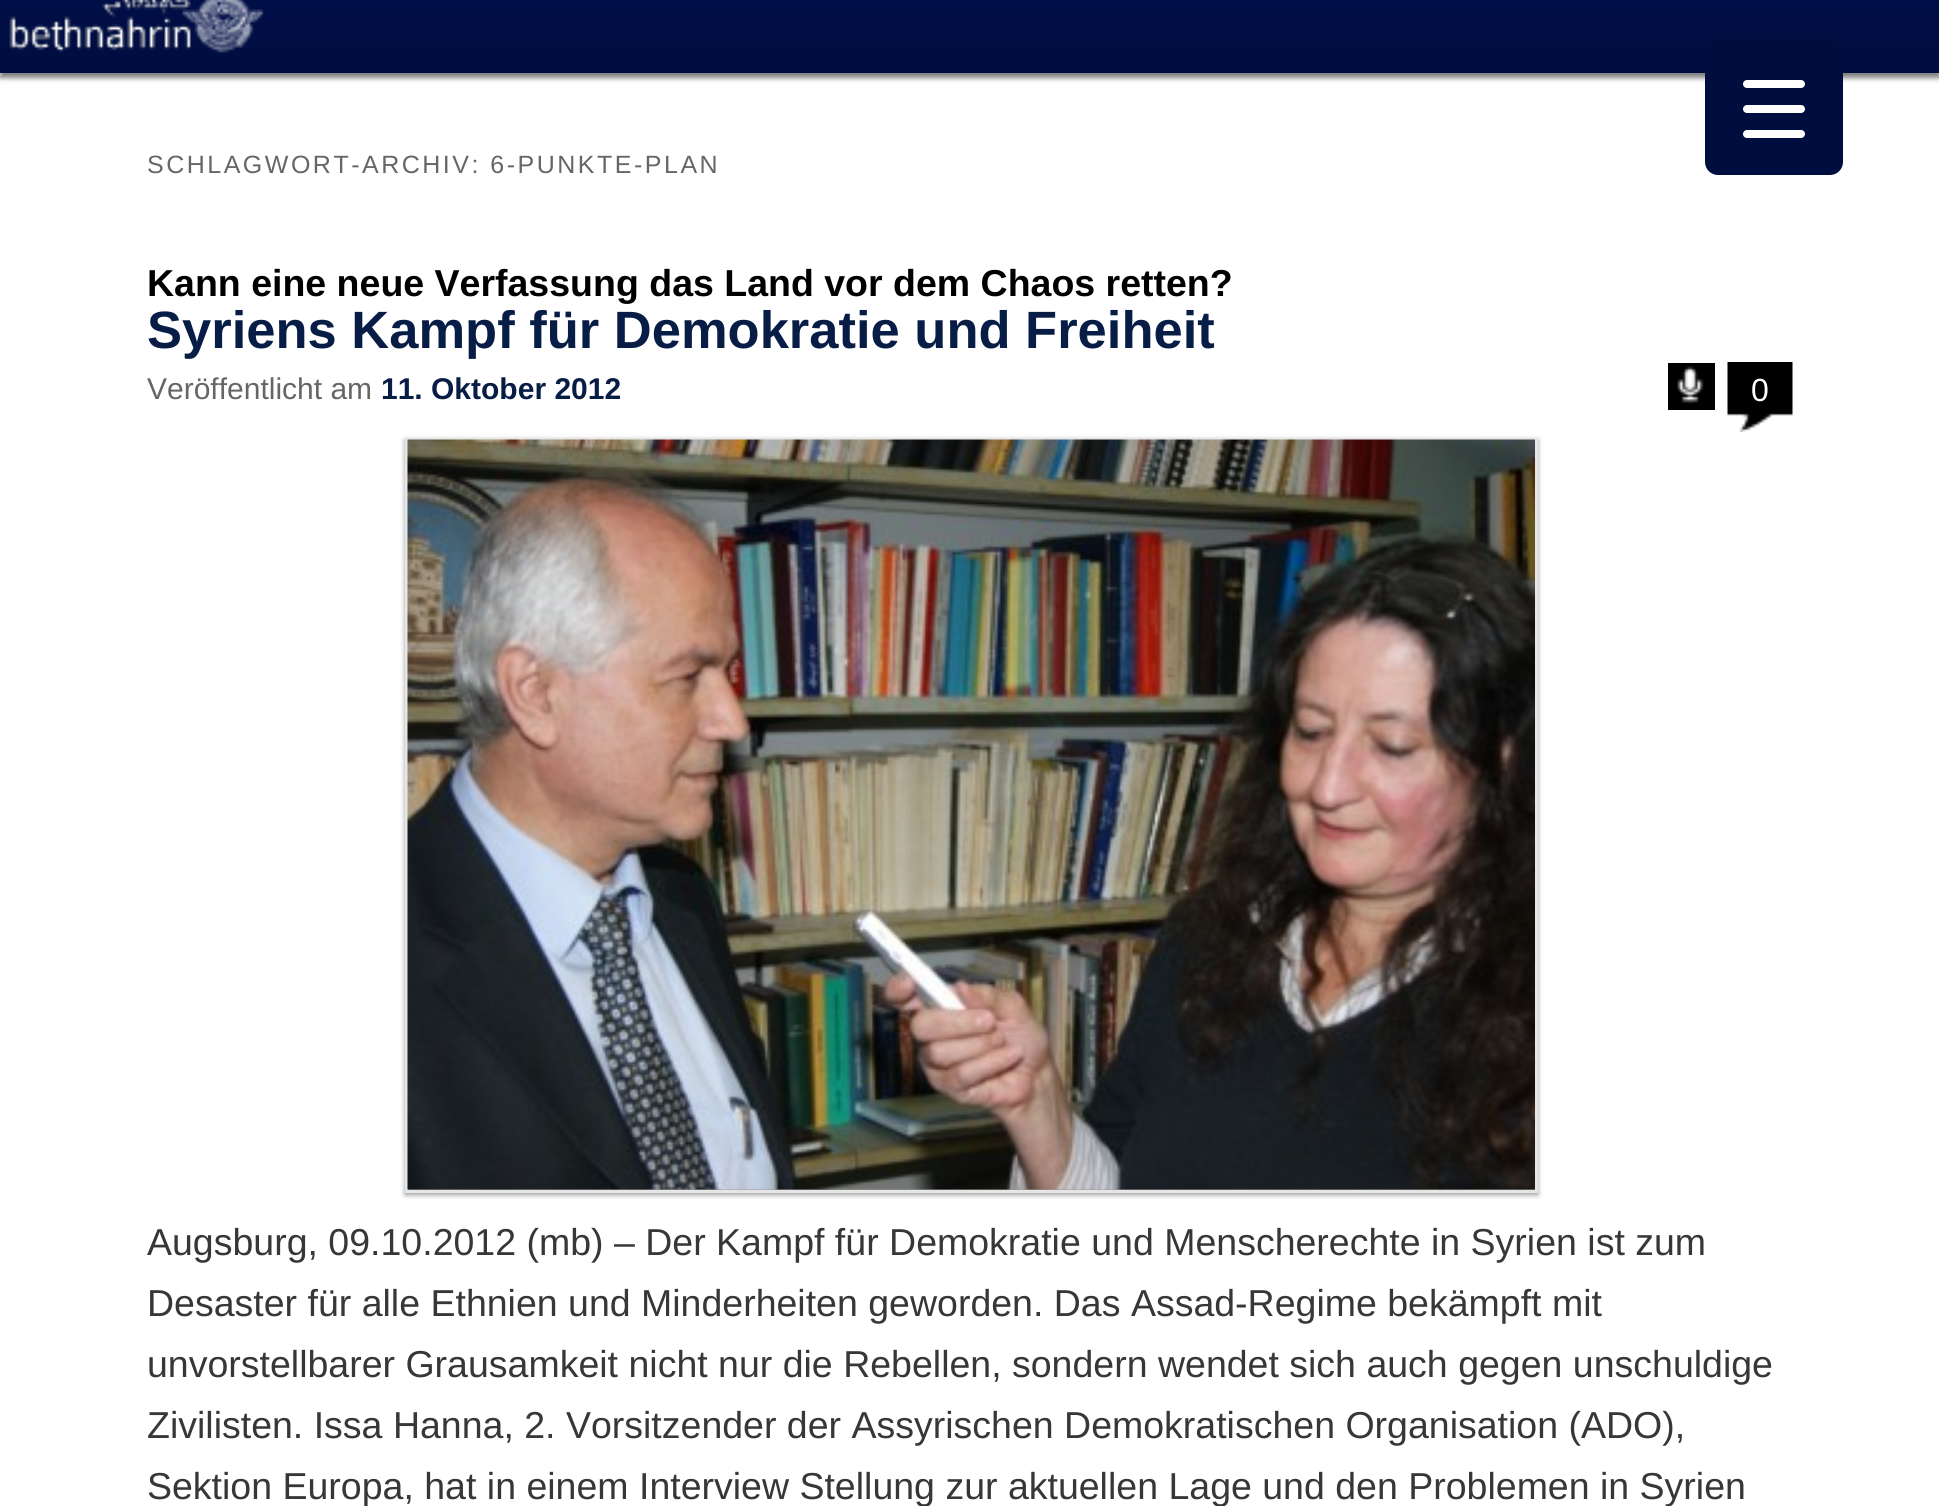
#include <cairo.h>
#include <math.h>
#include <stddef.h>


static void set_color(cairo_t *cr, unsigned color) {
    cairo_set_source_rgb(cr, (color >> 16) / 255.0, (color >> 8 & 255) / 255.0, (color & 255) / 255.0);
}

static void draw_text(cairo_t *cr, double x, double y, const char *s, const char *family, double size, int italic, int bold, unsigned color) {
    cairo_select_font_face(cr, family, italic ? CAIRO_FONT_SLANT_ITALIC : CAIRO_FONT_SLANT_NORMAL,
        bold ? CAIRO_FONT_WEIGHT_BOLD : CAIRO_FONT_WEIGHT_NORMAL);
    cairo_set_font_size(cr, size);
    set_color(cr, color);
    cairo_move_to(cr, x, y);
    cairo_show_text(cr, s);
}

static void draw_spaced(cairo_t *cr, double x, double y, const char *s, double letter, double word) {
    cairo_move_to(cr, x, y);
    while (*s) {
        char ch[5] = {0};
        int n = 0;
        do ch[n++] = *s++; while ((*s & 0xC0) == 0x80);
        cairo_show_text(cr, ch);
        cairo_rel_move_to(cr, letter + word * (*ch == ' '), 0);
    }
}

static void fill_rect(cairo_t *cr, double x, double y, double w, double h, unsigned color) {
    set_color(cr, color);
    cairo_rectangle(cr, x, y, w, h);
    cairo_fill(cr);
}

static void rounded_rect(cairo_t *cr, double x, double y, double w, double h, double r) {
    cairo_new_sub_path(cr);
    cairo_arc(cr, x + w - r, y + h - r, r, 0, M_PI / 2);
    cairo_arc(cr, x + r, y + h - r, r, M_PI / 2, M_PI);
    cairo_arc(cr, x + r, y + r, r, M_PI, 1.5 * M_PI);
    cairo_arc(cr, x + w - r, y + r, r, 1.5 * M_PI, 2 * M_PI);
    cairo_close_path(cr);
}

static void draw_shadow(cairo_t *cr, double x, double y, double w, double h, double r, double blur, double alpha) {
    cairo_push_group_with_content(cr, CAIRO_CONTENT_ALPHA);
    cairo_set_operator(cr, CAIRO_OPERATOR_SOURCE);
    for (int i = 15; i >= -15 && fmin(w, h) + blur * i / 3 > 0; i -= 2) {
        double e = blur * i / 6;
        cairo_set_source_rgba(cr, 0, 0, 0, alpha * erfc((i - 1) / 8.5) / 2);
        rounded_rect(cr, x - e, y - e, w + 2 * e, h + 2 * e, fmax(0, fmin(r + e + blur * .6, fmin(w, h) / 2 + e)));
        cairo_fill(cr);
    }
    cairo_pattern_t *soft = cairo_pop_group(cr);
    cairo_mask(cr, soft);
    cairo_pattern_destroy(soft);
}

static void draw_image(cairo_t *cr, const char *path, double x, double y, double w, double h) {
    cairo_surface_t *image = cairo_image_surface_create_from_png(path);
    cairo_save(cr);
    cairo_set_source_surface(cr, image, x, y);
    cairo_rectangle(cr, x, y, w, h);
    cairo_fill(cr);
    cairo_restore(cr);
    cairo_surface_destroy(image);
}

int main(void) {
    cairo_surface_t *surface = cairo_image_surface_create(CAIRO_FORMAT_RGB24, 1939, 1506);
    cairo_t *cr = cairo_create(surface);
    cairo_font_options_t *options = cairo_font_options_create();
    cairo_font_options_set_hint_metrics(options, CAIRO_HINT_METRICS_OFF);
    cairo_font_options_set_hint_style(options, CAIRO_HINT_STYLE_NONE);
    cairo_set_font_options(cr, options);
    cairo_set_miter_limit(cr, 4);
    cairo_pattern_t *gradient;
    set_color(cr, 0xFFFFFF);
    cairo_paint(cr);
    set_color(cr, 0x000000);
    draw_shadow(cr, 0, -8, 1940, 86, 0, 2.5, 0.5);
    gradient = cairo_pattern_create_linear(970, -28, 970, 73);
    cairo_pattern_add_color_stop_rgba(gradient, 0, 0, 0.059, 0.294, 1);
    cairo_pattern_add_color_stop_rgba(gradient, 1, 0, 0.051, 0.247, 1);
    cairo_set_source(cr, gradient);
    cairo_pattern_destroy(gradient);
    cairo_rectangle(cr, 0, 0, 1939, 73);
    cairo_fill(cr);
    draw_image(cr, "assets/img1.png", 9, 0, 255, 53);
    set_color(cr, 0x000D3F);
    rounded_rect(cr, 1705, 38, 138, 137, 13);
    cairo_fill(cr);
    set_color(cr, 0xFFFFFF);
    rounded_rect(cr, 1743, 105, 62, 8, 4);
    cairo_fill(cr);
    rounded_rect(cr, 1743, 80, 62, 8, 4);
    cairo_fill(cr);
    rounded_rect(cr, 1743, 130, 62, 8, 4);
    cairo_fill(cr);
    cairo_select_font_face(cr, "Liberation Sans", CAIRO_FONT_SLANT_NORMAL, CAIRO_FONT_WEIGHT_NORMAL);
    cairo_set_font_size(cr, 25);
    set_color(cr, 0x666666);
    draw_spaced(cr, 147, 173, "SCHLAGWORT-ARCHIV: 6-PUNKTE-PLAN", 2.5, 0);
    draw_text(cr, 147, 296, "Kann eine neue Verfassung das Land vor dem Chaos retten?", "Liberation Sans", 37.5, 0, 1, 0x000000);
    draw_text(cr, 147, 348, "Syriens Kampf für Demokratie und Freiheit", "Liberation Sans", 52.5, 0, 1, 0x081D46);
    draw_text(cr, 147, 399, "Veröffentlicht am", "Liberation Sans", 30, 0, 0, 0x666666);
    draw_text(cr, 381, 399, "11. Oktober 2012", "Liberation Sans", 30, 0, 1, 0x081D46);
    fill_rect(cr, 1668, 363, 47, 47, 0x000000);
    draw_image(cr, "assets/img2.png", 1677, 366, 27, 38);
    draw_image(cr, "assets/img3.png", 1727, 362, 66, 70);
    draw_text(cr, 1751, 401, "0", "Liberation Sans", 32, 0, 0, 0xFFFFFF);
    set_color(cr, 0x000000);
    draw_shadow(cr, 405, 440, 1133, 755, 0, 2.5, 0.4);
    cairo_rectangle(cr, 406.5, 439.5, 1130, 752);
    set_color(cr, 0xE6E6E6);
    cairo_set_line_width(cr, 3);
    cairo_stroke(cr);
    draw_image(cr, "assets/img4.png", 407, 439, 1128, 751);
    draw_text(cr, 147, 1255, "Augsburg, 09.10.2012 (mb) – Der Kampf für Demokratie und Menscherechte in Syrien ist zum", "Liberation Sans", 37.5, 0, 0, 0x373737);
    draw_text(cr, 147, 1316, "Desaster für alle Ethnien und Minderheiten geworden. Das Assad-Regime bekämpft mit", "Liberation Sans", 37.5, 0, 0, 0x373737);
    draw_text(cr, 147, 1377, "unvorstellbarer Grausamkeit nicht nur die Rebellen, sondern wendet sich auch gegen unschuldige", "Liberation Sans", 37.5, 0, 0, 0x373737);
    draw_text(cr, 147, 1438, "Zivilisten. Issa Hanna, 2. Vorsitzender der Assyrischen Demokratischen Organisation (ADO),", "Liberation Sans", 37.5, 0, 0, 0x373737);
    draw_text(cr, 147, 1499, "Sektion Europa, hat in einem Interview Stellung zur aktuellen Lage und den Problemen in Syrien", "Liberation Sans", 37.5, 0, 0, 0x373737);
    cairo_surface_write_to_png(surface, "output.png");
    cairo_font_options_destroy(options);
    cairo_destroy(cr);
    cairo_surface_destroy(surface);
    return 0;
}
